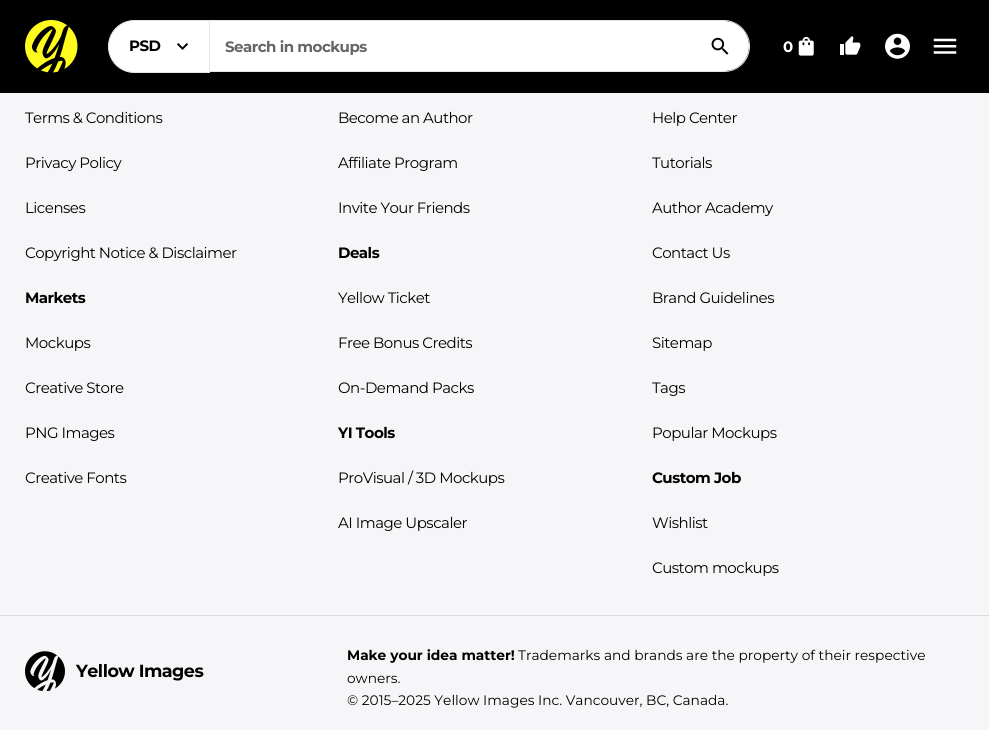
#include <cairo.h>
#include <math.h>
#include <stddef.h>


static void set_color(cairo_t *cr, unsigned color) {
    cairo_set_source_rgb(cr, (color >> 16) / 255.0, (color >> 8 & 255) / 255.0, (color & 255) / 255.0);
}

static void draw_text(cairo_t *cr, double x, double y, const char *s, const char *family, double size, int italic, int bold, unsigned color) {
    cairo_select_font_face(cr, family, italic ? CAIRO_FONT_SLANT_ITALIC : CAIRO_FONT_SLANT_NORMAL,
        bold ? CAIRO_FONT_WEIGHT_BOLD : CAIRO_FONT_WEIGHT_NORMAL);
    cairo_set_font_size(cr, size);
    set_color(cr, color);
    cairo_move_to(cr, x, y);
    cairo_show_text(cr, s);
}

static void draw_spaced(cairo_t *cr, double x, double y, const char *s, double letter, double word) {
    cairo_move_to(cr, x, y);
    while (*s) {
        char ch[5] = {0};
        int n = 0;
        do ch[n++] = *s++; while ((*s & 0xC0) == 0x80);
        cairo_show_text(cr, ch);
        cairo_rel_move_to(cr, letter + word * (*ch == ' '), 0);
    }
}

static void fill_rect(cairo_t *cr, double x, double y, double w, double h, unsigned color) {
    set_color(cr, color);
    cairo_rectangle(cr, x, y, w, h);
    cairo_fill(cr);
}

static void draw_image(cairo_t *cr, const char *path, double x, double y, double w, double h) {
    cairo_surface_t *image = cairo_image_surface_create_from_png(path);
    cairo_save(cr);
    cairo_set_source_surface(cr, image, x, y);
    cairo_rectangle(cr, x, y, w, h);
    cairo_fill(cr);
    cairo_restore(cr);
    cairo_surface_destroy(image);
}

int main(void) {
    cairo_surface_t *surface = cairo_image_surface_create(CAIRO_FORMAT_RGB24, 989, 730);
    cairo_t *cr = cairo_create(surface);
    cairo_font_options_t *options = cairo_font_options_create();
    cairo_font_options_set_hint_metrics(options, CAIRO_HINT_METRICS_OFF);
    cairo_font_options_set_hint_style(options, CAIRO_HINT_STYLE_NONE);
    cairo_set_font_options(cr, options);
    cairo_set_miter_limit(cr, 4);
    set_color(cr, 0xF6F6F8);
    cairo_paint(cr);
    fill_rect(cr, 0, 0, 989, 93, 0x000000);
    draw_image(cr, "assets/img1.png", 25, 20, 53, 53);
    set_color(cr, 0xFFFFFF);
    cairo_new_path(cr);
    cairo_move_to(cr, 134.5, 20.5);
    cairo_line_to(cr, 209.5, 20.5);
    cairo_line_to(cr, 209.5, 72.5);
    cairo_line_to(cr, 134.5, 72.5);
    cairo_curve_to(cr, 120, 72.5, 108.5, 61, 108.5, 46.5);
    cairo_curve_to(cr, 108.5, 32, 120, 20.5, 134.5, 20.5);
    cairo_close_path(cr);
    cairo_fill_preserve(cr);
    set_color(cr, 0xE2E5E9);
    cairo_set_line_width(cr, 1);
    cairo_stroke(cr);
    cairo_select_font_face(cr, "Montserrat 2 Thin", CAIRO_FONT_SLANT_NORMAL, CAIRO_FONT_WEIGHT_NORMAL);
    cairo_set_font_size(cr, 15);
    set_color(cr, 0x000000);
    draw_spaced(cr, 129, 51, "PSD", -0.5, 0);
    draw_image(cr, "assets/img2.png", 177, 43, 11, 7);
    set_color(cr, 0xFFFFFF);
    cairo_new_path(cr);
    cairo_move_to(cr, 210, 21);
    cairo_line_to(cr, 724, 21);
    cairo_curve_to(cr, 738, 21, 749, 32, 749, 46);
    cairo_curve_to(cr, 749, 60, 738, 71, 724, 71);
    cairo_line_to(cr, 210, 71);
    cairo_close_path(cr);
    cairo_fill(cr);
    set_color(cr, 0xE2E5E9);
    cairo_set_fill_rule(cr, CAIRO_FILL_RULE_EVEN_ODD);
    cairo_new_path(cr);
    cairo_move_to(cr, 210, 20);
    cairo_line_to(cr, 724, 20);
    cairo_curve_to(cr, 738, 20, 750, 32, 750, 46);
    cairo_curve_to(cr, 750, 61, 738, 72, 724, 72);
    cairo_line_to(cr, 210, 72);
    cairo_close_path(cr);
    cairo_move_to(cr, 210, 21);
    cairo_line_to(cr, 724, 21);
    cairo_curve_to(cr, 738, 21, 749, 32, 749, 46);
    cairo_curve_to(cr, 749, 60, 738, 71, 724, 71);
    cairo_line_to(cr, 210, 71);
    cairo_close_path(cr);
    cairo_fill(cr);
    set_color(cr, 0x656565);
    draw_spaced(cr, 225, 52, "Search in mockups", -0.5, 0);
    draw_image(cr, "assets/img3.png", 711, 37, 18, 18);
    set_color(cr, 0xFFFFFF);
    draw_spaced(cr, 783, 52, "0", -0.5, 0);
    draw_image(cr, "assets/img4.png", 798, 36, 16, 20);
    draw_image(cr, "assets/img5.png", 840, 36, 21, 19);
    draw_image(cr, "assets/img6.png", 885, 33, 25, 26);
    draw_image(cr, "assets/img7.png", 933, 38, 24, 16);
    cairo_select_font_face(cr, "Montserrat Thin", CAIRO_FONT_SLANT_NORMAL, CAIRO_FONT_WEIGHT_NORMAL);
    set_color(cr, 0x000000);
    draw_spaced(cr, 25, 123, "Terms & Conditions", -0.5, 0);
    draw_spaced(cr, 25, 168, "Privacy Policy", -0.5, 0);
    draw_spaced(cr, 25, 213, "Licenses", -0.5, 0);
    draw_spaced(cr, 25, 258, "Copyright Notice & Disclaimer", -0.5, 0);
    draw_spaced(cr, 338, 123, "Become an Author", -0.5, 0);
    draw_spaced(cr, 338, 168, "Affiliate Program", -0.5, 0);
    draw_spaced(cr, 338, 213, "Invite Your Friends", -0.5, 0);
    draw_spaced(cr, 652, 123, "Help Center", -0.5, 0);
    draw_spaced(cr, 652, 168, "Tutorials", -0.5, 0);
    draw_spaced(cr, 652, 213, "Author Academy", -0.5, 0);
    draw_spaced(cr, 652, 258, "Contact Us", -0.5, 0);
    draw_spaced(cr, 652, 303, "Brand Guidelines", -0.5, 0);
    draw_spaced(cr, 652, 348, "Sitemap", -0.5, 0);
    draw_spaced(cr, 652, 393, "Tags", -0.5, 0);
    draw_spaced(cr, 652, 438, "Popular Mockups", -0.5, 0);
    cairo_select_font_face(cr, "Montserrat 2 Thin", CAIRO_FONT_SLANT_NORMAL, CAIRO_FONT_WEIGHT_NORMAL);
    draw_spaced(cr, 25, 303, "Markets", -0.5, 0);
    cairo_select_font_face(cr, "Montserrat Thin", CAIRO_FONT_SLANT_NORMAL, CAIRO_FONT_WEIGHT_NORMAL);
    draw_spaced(cr, 25, 348, "Mockups", -0.5, 0);
    draw_spaced(cr, 25, 393, "Creative Store", -0.5, 0);
    draw_spaced(cr, 25, 438, "PNG Images", -0.5, 0);
    draw_spaced(cr, 25, 483, "Creative Fonts", -0.5, 0);
    cairo_select_font_face(cr, "Montserrat 2 Thin", CAIRO_FONT_SLANT_NORMAL, CAIRO_FONT_WEIGHT_NORMAL);
    draw_spaced(cr, 338, 258, "Deals", -0.5, 0);
    cairo_select_font_face(cr, "Montserrat Thin", CAIRO_FONT_SLANT_NORMAL, CAIRO_FONT_WEIGHT_NORMAL);
    draw_spaced(cr, 338, 303, "Yellow Ticket", -0.5, 0);
    draw_spaced(cr, 338, 348, "Free Bonus Credits", -0.5, 0);
    draw_spaced(cr, 338, 393, "On-Demand Packs", -0.5, 0);
    cairo_select_font_face(cr, "Montserrat 2 Thin", CAIRO_FONT_SLANT_NORMAL, CAIRO_FONT_WEIGHT_NORMAL);
    draw_spaced(cr, 338, 438, "YI Tools", -0.5, 0);
    cairo_select_font_face(cr, "Montserrat Thin", CAIRO_FONT_SLANT_NORMAL, CAIRO_FONT_WEIGHT_NORMAL);
    draw_spaced(cr, 338, 483, "ProVisual / 3D Mockups", -0.5, 0);
    draw_spaced(cr, 338, 528, "AI Image Upscaler", -0.5, 0);
    cairo_select_font_face(cr, "Montserrat 2 Thin", CAIRO_FONT_SLANT_NORMAL, CAIRO_FONT_WEIGHT_NORMAL);
    draw_spaced(cr, 652, 483, "Custom Job", -0.5, 0);
    cairo_select_font_face(cr, "Montserrat Thin", CAIRO_FONT_SLANT_NORMAL, CAIRO_FONT_WEIGHT_NORMAL);
    draw_spaced(cr, 652, 528, "Wishlist", -0.5, 0);
    draw_spaced(cr, 652, 573, "Custom mockups", -0.5, 0);
    fill_rect(cr, 0, 615, 989, 1, 0xDBDBDF);
    draw_image(cr, "assets/img8.png", 25, 651, 40, 40);
    cairo_select_font_face(cr, "Montserrat 2 Thin", CAIRO_FONT_SLANT_NORMAL, CAIRO_FONT_WEIGHT_NORMAL);
    cairo_set_font_size(cr, 17.5);
    set_color(cr, 0x000000);
    draw_spaced(cr, 76, 677, "Yellow Images", -0.5, 0);
    draw_text(cr, 347, 660, "Make your idea matter!", "Montserrat 2 Thin", 13.75, 0, 0, 0x000000);
    draw_text(cr, 518, 660, "Trademarks and brands are the property of their respective", "Montserrat Thin", 13.75, 0, 0, 0x000000);
    draw_text(cr, 347, 683, "owners.", "Montserrat Thin", 13.75, 0, 0, 0x000000);
    draw_text(cr, 347, 705, "© 2015–2025 Yellow Images Inc. Vancouver, BC, Canada.", "Montserrat Thin", 13.75, 0, 0, 0x000000);
    cairo_surface_write_to_png(surface, "output.png");
    cairo_font_options_destroy(options);
    cairo_destroy(cr);
    cairo_surface_destroy(surface);
    return 0;
}
